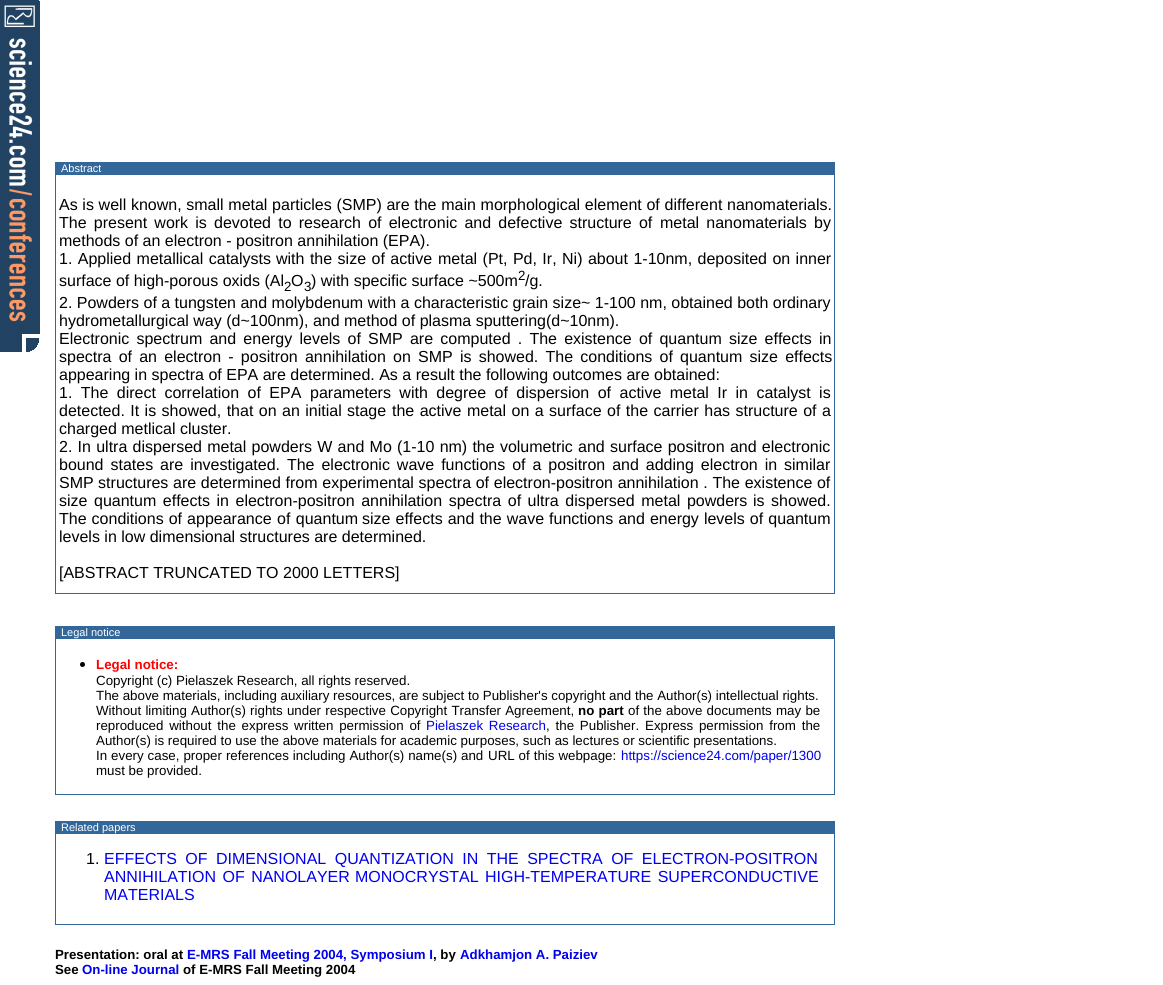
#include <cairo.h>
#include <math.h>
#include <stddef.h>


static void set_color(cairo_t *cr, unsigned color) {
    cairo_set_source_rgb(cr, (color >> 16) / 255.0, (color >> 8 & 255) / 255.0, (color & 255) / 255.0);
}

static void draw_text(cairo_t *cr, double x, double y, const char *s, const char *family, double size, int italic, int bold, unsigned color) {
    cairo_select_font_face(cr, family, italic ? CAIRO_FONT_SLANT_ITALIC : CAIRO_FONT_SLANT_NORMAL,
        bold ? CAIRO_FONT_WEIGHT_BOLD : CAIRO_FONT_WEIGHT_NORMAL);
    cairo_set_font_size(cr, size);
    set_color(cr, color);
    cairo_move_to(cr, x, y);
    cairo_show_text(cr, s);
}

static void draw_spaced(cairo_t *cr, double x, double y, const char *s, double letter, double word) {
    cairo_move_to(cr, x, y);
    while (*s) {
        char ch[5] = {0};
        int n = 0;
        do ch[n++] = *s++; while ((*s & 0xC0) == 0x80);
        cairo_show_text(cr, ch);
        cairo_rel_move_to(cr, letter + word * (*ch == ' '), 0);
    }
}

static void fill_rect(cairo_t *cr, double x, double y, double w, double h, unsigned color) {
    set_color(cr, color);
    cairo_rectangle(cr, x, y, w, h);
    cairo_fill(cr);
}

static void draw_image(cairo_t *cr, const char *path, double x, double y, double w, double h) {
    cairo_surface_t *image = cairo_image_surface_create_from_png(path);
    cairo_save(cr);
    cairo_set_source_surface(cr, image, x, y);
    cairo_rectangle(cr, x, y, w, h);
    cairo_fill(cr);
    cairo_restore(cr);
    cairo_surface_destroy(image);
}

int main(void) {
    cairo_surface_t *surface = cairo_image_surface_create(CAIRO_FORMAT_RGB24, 1163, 985);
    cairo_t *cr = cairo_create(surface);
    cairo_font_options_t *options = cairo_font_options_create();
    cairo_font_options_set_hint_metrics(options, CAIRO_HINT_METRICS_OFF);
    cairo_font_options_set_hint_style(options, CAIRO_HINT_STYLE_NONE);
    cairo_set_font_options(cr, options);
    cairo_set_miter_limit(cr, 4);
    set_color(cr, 0xFFFFFF);
    cairo_paint(cr);
    draw_image(cr, "assets/img1.png", 0, 0, 40, 352);
    fill_rect(cr, 55, 162, 780, 13, 0x336699);
    draw_text(cr, 61, 172, "Abstract", "Liberation Sans", 11, 0, 0, 0xFFFFFF);
    fill_rect(cr, 834, 174, 1, 419, 0x336699);
    fill_rect(cr, 55, 174, 1, 419, 0x336699);
    cairo_set_font_size(cr, 16);
    set_color(cr, 0x000000);
    draw_spaced(cr, 59, 210, "As is well known, small metal particles (SMP) are the main morphological element of different nanomaterials.", 0, 0.25);
    draw_spaced(cr, 59, 228, "The present work is devoted to research of electronic and defective structure of", 0, 2.75);
    draw_spaced(cr, 660, 228, "metal nanomaterials by", 0, 2.75);
    draw_text(cr, 59, 246, "methods of an electron - positron annihilation (EPA).", "Liberation Sans", 16, 0, 0, 0x000000);
    draw_spaced(cr, 59, 264, "1. Applied metallical catalysts", 0, 1);
    draw_spaced(cr, 276, 264, "with the size of active", 0, 1);
    draw_spaced(cr, 438, 264, "metal (Pt, Pd, Ir, Ni) about 1-10nm, deposited on inner", 0, 1);
    draw_text(cr, 59, 286, "surface of high-porous oxids (Al", "Liberation Sans", 16, 0, 0, 0x000000);
    draw_text(cr, 284, 291, "2", "Liberation Sans", 13.33, 0, 0, 0x000000);
    draw_text(cr, 291, 286, "O", "Liberation Sans", 16, 0, 0, 0x000000);
    draw_text(cr, 304, 291, "3", "Liberation Sans", 13.33, 0, 0, 0x000000);
    draw_text(cr, 311, 286, ") with specific surface ~500m", "Liberation Sans", 16, 0, 0, 0x000000);
    draw_text(cr, 518, 280, "2", "Liberation Sans", 13.33, 0, 0, 0x000000);
    draw_text(cr, 525, 286, "/g.", "Liberation Sans", 16, 0, 0, 0x000000);
    draw_text(cr, 59, 308, "2. Powders of a tungsten and molybdenum with a characteristic grain size~ 1-100 nm, obtained both ordinary", "Liberation Sans", 16, 0, 0, 0x000000);
    draw_text(cr, 59, 326, "hydrometallurgical way (d~100nm), and method of plasma sputtering(d~10nm).", "Liberation Sans", 16, 0, 0, 0x000000);
    draw_spaced(cr, 59, 344, "Electronic spectrum and energy levels of SMP are computed . The existence of quantum size effects in", 0, 2.75);
    draw_spaced(cr, 59, 362, "spectra of an electron - positron annihilation on SMP is showed. The conditions of quantum size effects", 0, 2.75);
    draw_text(cr, 59, 380, "appearing in spectra of EPA are determined. As a result the following outcomes are obtained:", "Liberation Sans", 16, 0, 0, 0x000000);
    draw_spaced(cr, 59, 398, "1. The direct correlation of EPA", 0, 4);
    draw_spaced(cr, 310, 398, "parameters with degree of dispersion of active metal Ir in catalyst is", 0, 4);
    draw_spaced(cr, 59, 416, "detected. It is showed, that on an initial", 0, 1);
    draw_text(cr, 347, 416, "stage", "Liberation Sans", 16, 0, 0, 0x000000);
    draw_spaced(cr, 392, 416, "the active metal on a surface of the carrier has structure of a", 0, 1);
    draw_text(cr, 59, 434, "charged metlical cluster.", "Liberation Sans", 16, 0, 0, 0x000000);
    draw_spaced(cr, 59, 452, "2. In ultra dispersed metal powders W and Mo (1-10 nm) the volumetric and surface positron and electronic", 0, 0.8);
    draw_spaced(cr, 59, 470, "bound states are investigated. The electronic wave functions of a positron and adding electron in similar", 0, 2.5);
    draw_text(cr, 59, 488, "SMP structures", "Liberation Sans", 16, 0, 0, 0x000000);
    draw_spaced(cr, 173, 488, "are determined from experimental spectra of electron-positron annihilation . The existence of", 0, 0.25);
    draw_spaced(cr, 59, 506, "size quantum effects in electron-positron annihilation spectra of ultra dispersed metal powders", 0, 2.1);
    draw_spaced(cr, 753, 506, "is showed.", 0, 2.1);
    draw_spaced(cr, 59, 524, "The conditions of appearance", 0, 0.6);
    draw_spaced(cr, 277, 524, "of quantum", 0, 1);
    draw_spaced(cr, 362, 524, "size effects and the wave functions and energy levels of quantum", 0, 0.6);
    draw_text(cr, 59, 542, "levels in low dimensional structures are determined.", "Liberation Sans", 16, 0, 0, 0x000000);
    draw_text(cr, 59, 578, "[ABSTRACT TRUNCATED TO 2000 LETTERS]", "Liberation Sans", 16, 0, 0, 0x000000);
    fill_rect(cr, 55, 593, 780, 1, 0x336699);
    fill_rect(cr, 55, 626, 780, 12, 0x336699);
    cairo_rectangle(cr, 55.5, 638.5, 779, 156);
    cairo_set_line_width(cr, 1);
    cairo_stroke(cr);
    draw_text(cr, 61, 636, "Legal notice", "Liberation Sans", 11, 0, 0, 0xFFFFFF);
    set_color(cr, 0x000000);
    cairo_new_path(cr);
    cairo_arc(cr, 82.5, 664.5, 2.5, 0, 2 * M_PI);
    cairo_fill(cr);
    draw_text(cr, 96, 669, "Legal notice:", "Liberation Sans", 13.33, 0, 1, 0xFF0000);
    draw_text(cr, 96, 685, "Copyright (c) Pielaszek Research, all rights reserved.", "Liberation Sans", 13.33, 0, 0, 0x000000);
    draw_text(cr, 96, 700, "The above materials, including auxiliary resources, are subject to Publisher's copyright and the Author(s) intellectual rights.", "Liberation Sans", 13.33, 0, 0, 0x000000);
    draw_spaced(cr, 96, 715, "Without limiting Author(s) rights under respective Copyright Transfer Agreement,", 0, 0.5);
    cairo_select_font_face(cr, "Liberation Sans", CAIRO_FONT_SLANT_NORMAL, CAIRO_FONT_WEIGHT_BOLD);
    draw_spaced(cr, 578, 715, "no part", 0, 0.5);
    cairo_select_font_face(cr, "Liberation Sans", CAIRO_FONT_SLANT_NORMAL, CAIRO_FONT_WEIGHT_NORMAL);
    draw_spaced(cr, 628, 715, "of the above documents may be", 0, 0.5);
    draw_spaced(cr, 96, 730, "reproduced without the express written permission of", 0, 2.1);
    set_color(cr, 0x0000EE);
    draw_spaced(cr, 426, 730, "Pielaszek Research", 0, 2.1);
    set_color(cr, 0x000000);
    draw_spaced(cr, 546, 730, ", the Publisher.", 0, 2.1);
    draw_spaced(cr, 645, 730, "Express permission from the", 0, 2.1);
    draw_text(cr, 96, 745, "Author(s) is required to use the above materials for academic purposes, such as lectures or scientific presentations.", "Liberation Sans", 13.33, 0, 0, 0x000000);
    draw_spaced(cr, 96, 760, "In every case, proper references including Author(s) name(s) and", 0, 0.25);
    draw_spaced(cr, 488, 760, "URL of this webpage:", 0, 0.25);
    draw_text(cr, 621, 760, "https://science24.com/paper/1300", "Liberation Sans", 13.33, 0, 0, 0x0000EE);
    draw_text(cr, 96, 775, "must be provided.", "Liberation Sans", 13.33, 0, 0, 0x000000);
    fill_rect(cr, 55, 821, 780, 12, 0x336699);
    cairo_rectangle(cr, 55.5, 833.5, 779, 91);
    cairo_stroke(cr);
    draw_text(cr, 61, 831, "Related papers", "Liberation Sans", 11, 0, 0, 0xFFFFFF);
    draw_text(cr, 86, 864, "1.", "Liberation Sans", 16, 0, 0, 0x000000);
    set_color(cr, 0x0000EE);
    draw_spaced(cr, 104, 864, "EFFECTS OF DIMENSIONAL QUANTIZATION IN THE SPECTRA OF ELECTRON-POSITRON", 0, 4);
    draw_spaced(cr, 104, 882, "ANNIHILATION OF NANOLAYER", 0, 2);
    draw_spaced(cr, 355, 882, "MONOCRYSTAL HIGH-TEMPERATURE SUPERCONDUCTIVE", 0, 2);
    draw_text(cr, 104, 900, "MATERIALS", "Liberation Sans", 16, 0, 0, 0x0000EE);
    draw_text(cr, 55, 959, "Presentation: oral at", "Liberation Sans", 13.25, 0, 1, 0x000000);
    draw_text(cr, 187, 959, "E-MRS Fall Meeting 2004, Symposium I", "Liberation Sans", 13.25, 0, 1, 0x0000EE);
    draw_text(cr, 433, 959, ", by", "Liberation Sans", 13.25, 0, 1, 0x000000);
    draw_text(cr, 460, 959, "Adkhamjon A. Paiziev", "Liberation Sans", 13.25, 0, 1, 0x0000EE);
    draw_text(cr, 55, 974, "See", "Liberation Sans", 13.25, 0, 1, 0x000000);
    draw_text(cr, 82, 974, "On-line Journal", "Liberation Sans", 13.25, 0, 1, 0x0000EE);
    draw_text(cr, 183, 974, "of E-MRS Fall Meeting 2004", "Liberation Sans", 13.25, 0, 1, 0x000000);
    cairo_surface_write_to_png(surface, "output.png");
    cairo_font_options_destroy(options);
    cairo_destroy(cr);
    cairo_surface_destroy(surface);
    return 0;
}
